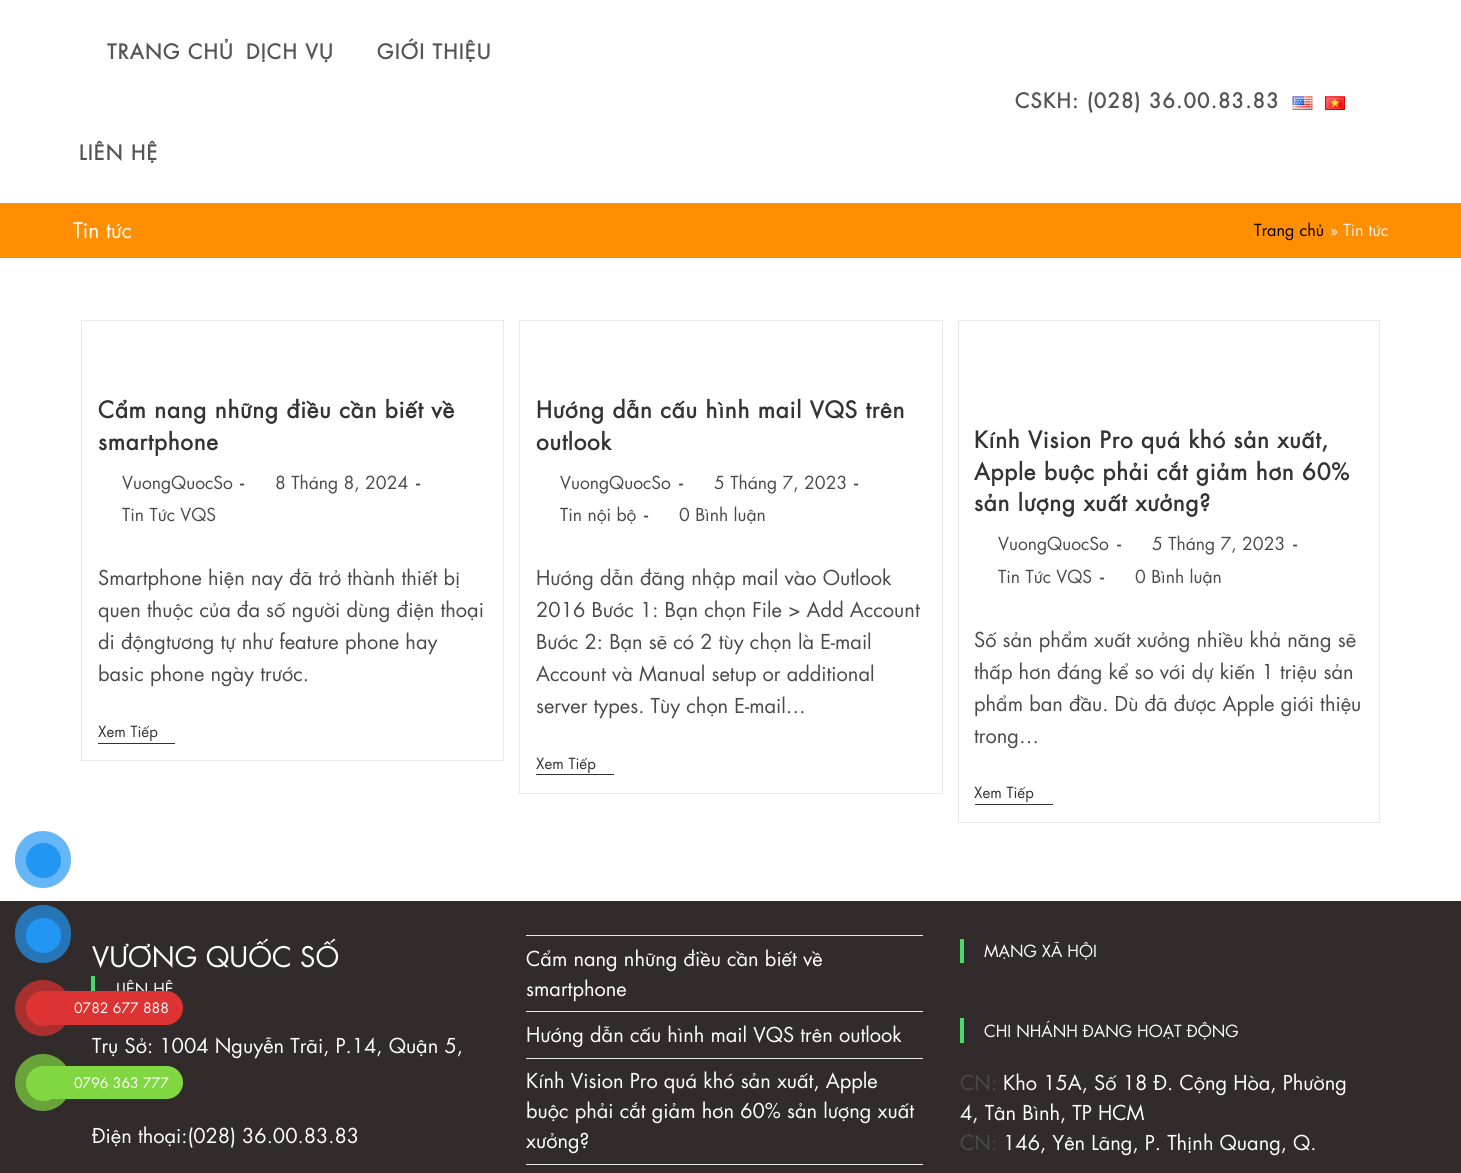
#include <cairo.h>
#include <math.h>
#include <stddef.h>


static void set_color(cairo_t *cr, unsigned color) {
    cairo_set_source_rgb(cr, (color >> 16) / 255.0, (color >> 8 & 255) / 255.0, (color & 255) / 255.0);
}

static void draw_text(cairo_t *cr, double x, double y, const char *s, const char *family, double size, int italic, int bold, unsigned color) {
    cairo_select_font_face(cr, family, italic ? CAIRO_FONT_SLANT_ITALIC : CAIRO_FONT_SLANT_NORMAL,
        bold ? CAIRO_FONT_WEIGHT_BOLD : CAIRO_FONT_WEIGHT_NORMAL);
    cairo_set_font_size(cr, size);
    set_color(cr, color);
    cairo_move_to(cr, x, y);
    cairo_show_text(cr, s);
}

static void draw_spaced(cairo_t *cr, double x, double y, const char *s, double letter, double word) {
    cairo_move_to(cr, x, y);
    while (*s) {
        char ch[5] = {0};
        int n = 0;
        do ch[n++] = *s++; while ((*s & 0xC0) == 0x80);
        cairo_show_text(cr, ch);
        cairo_rel_move_to(cr, letter + word * (*ch == ' '), 0);
    }
}

static void fill_rect(cairo_t *cr, double x, double y, double w, double h, unsigned color) {
    set_color(cr, color);
    cairo_rectangle(cr, x, y, w, h);
    cairo_fill(cr);
}

static void rounded_rect(cairo_t *cr, double x, double y, double w, double h, double r) {
    cairo_new_sub_path(cr);
    cairo_arc(cr, x + w - r, y + h - r, r, 0, M_PI / 2);
    cairo_arc(cr, x + r, y + h - r, r, M_PI / 2, M_PI);
    cairo_arc(cr, x + r, y + r, r, M_PI, 1.5 * M_PI);
    cairo_arc(cr, x + w - r, y + r, r, 1.5 * M_PI, 2 * M_PI);
    cairo_close_path(cr);
}

static void draw_image(cairo_t *cr, const char *path, double x, double y, double w, double h) {
    cairo_surface_t *image = cairo_image_surface_create_from_png(path);
    cairo_save(cr);
    cairo_set_source_surface(cr, image, x, y);
    cairo_rectangle(cr, x, y, w, h);
    cairo_fill(cr);
    cairo_restore(cr);
    cairo_surface_destroy(image);
}

int main(void) {
    cairo_surface_t *surface = cairo_image_surface_create(CAIRO_FORMAT_RGB24, 1461, 1173);
    cairo_t *cr = cairo_create(surface);
    cairo_font_options_t *options = cairo_font_options_create();
    cairo_font_options_set_hint_metrics(options, CAIRO_HINT_METRICS_OFF);
    cairo_font_options_set_hint_style(options, CAIRO_HINT_STYLE_NONE);
    cairo_set_font_options(cr, options);
    cairo_set_miter_limit(cr, 4);
    set_color(cr, 0xFFFFFF);
    cairo_paint(cr);
    cairo_select_font_face(cr, "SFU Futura", CAIRO_FONT_SLANT_NORMAL, CAIRO_FONT_WEIGHT_BOLD);
    cairo_set_font_size(cr, 20);
    set_color(cr, 0x555555);
    draw_spaced(cr, 107, 59, "TRANG CHỦ", 1.25, 0);
    draw_spaced(cr, 246, 59, "DỊCH VỤ", 1.25, 0);
    draw_spaced(cr, 377, 59, "GIỚI THIỆU", 1.25, 0);
    draw_spaced(cr, 79, 160, "LIÊN HỆ", 1.25, 0);
    draw_spaced(cr, 1015, 108, "CSKH: (028) 36.00.83.83", 1.25, 0);
    draw_image(cr, "assets/img1.png", 1292, 96, 21, 14);
    draw_image(cr, "assets/img2.png", 1325, 96, 20, 14);
    fill_rect(cr, 0, 203, 1461, 55, 0xFF8F00);
    draw_text(cr, 73, 238, "Tin tức", "SFU Futura", 21, 0, 0, 0xFFFFFF);
    draw_text(cr, 1254, 236, "Trang chủ", "SFU Futura", 16.25, 0, 0, 0x000000);
    draw_text(cr, 1330, 236, "» Tin tức", "SFU Futura", 16.25, 0, 0, 0xEFEFEF);
    cairo_rectangle(cr, 81.5, 320.5, 422, 440);
    set_color(cr, 0xE9E9E9);
    cairo_set_line_width(cr, 1);
    cairo_stroke(cr);
    cairo_select_font_face(cr, "SFU Futura", CAIRO_FONT_SLANT_NORMAL, CAIRO_FONT_WEIGHT_BOLD);
    cairo_set_font_size(cr, 22.5);
    set_color(cr, 0x333333);
    draw_spaced(cr, 98, 418, "Cẩm nang những điều cần biết về", 0.75, 0);
    draw_spaced(cr, 98, 450, "smartphone", 0.75, 0);
    draw_text(cr, 122, 489, "VuongQuocSo", "SFU Futura", 17.5, 0, 0, 0x4A4A4A);
    draw_text(cr, 240, 489, "-", "SFU Futura", 17.5, 0, 1, 0x4A4A4A);
    draw_text(cr, 275, 489, "8 Tháng 8, 2024", "SFU Futura", 17.5, 0, 0, 0x4A4A4A);
    draw_text(cr, 416, 489, "-", "SFU Futura", 17.5, 0, 1, 0x4A4A4A);
    draw_text(cr, 122, 521, "Tin Tức VQS", "SFU Futura", 17.5, 0, 0, 0x4A4A4A);
    draw_text(cr, 98, 585, "Smartphone hiện nay đã trở thành thiết bị", "SFU Futura", 20, 0, 0, 0x4A4A4A);
    draw_text(cr, 98, 617, "quen thuộc của đa số người dùng điện thoại", "SFU Futura", 20, 0, 0, 0x4A4A4A);
    draw_text(cr, 98, 649, "di độngtương tự như feature phone hay", "SFU Futura", 20, 0, 0, 0x4A4A4A);
    draw_text(cr, 98, 681, "basic phone ngày trước.", "SFU Futura", 20, 0, 0, 0x4A4A4A);
    fill_rect(cr, 98, 743, 77, 1, 0x333333);
    draw_text(cr, 98, 737, "Xem Tiếp", "SFU Futura", 15, 0, 0, 0x333333);
    cairo_rectangle(cr, 519.5, 320.5, 423, 473);
    set_color(cr, 0xE9E9E9);
    cairo_stroke(cr);
    cairo_select_font_face(cr, "SFU Futura", CAIRO_FONT_SLANT_NORMAL, CAIRO_FONT_WEIGHT_BOLD);
    cairo_set_font_size(cr, 22.5);
    set_color(cr, 0x333333);
    draw_spaced(cr, 536, 418, "Hướng dẫn cấu hình mail VQS trên", 0.75, 0);
    draw_spaced(cr, 536, 450, "outlook", 0.75, 0);
    draw_text(cr, 560, 489, "VuongQuocSo", "SFU Futura", 17.5, 0, 0, 0x4A4A4A);
    draw_text(cr, 679, 489, "-", "SFU Futura", 17.5, 0, 1, 0x4A4A4A);
    draw_text(cr, 714, 489, "5 Tháng 7, 2023", "SFU Futura", 17.5, 0, 0, 0x4A4A4A);
    draw_text(cr, 854, 489, "-", "SFU Futura", 17.5, 0, 1, 0x4A4A4A);
    draw_text(cr, 560, 521, "Tin nội bộ", "SFU Futura", 17.5, 0, 0, 0x4A4A4A);
    draw_text(cr, 644, 521, "-", "SFU Futura", 17.5, 0, 1, 0x4A4A4A);
    draw_text(cr, 679, 521, "0 Bình luận", "SFU Futura", 17.5, 0, 0, 0x4A4A4A);
    draw_text(cr, 536, 585, "Hướng dẫn đăng nhập mail vào Outlook", "SFU Futura", 20, 0, 0, 0x4A4A4A);
    draw_text(cr, 536, 617, "2016 Bước 1: Bạn chọn File > Add Account", "SFU Futura", 20, 0, 0, 0x4A4A4A);
    draw_text(cr, 536, 649, "Bước 2: Bạn sẽ có 2 tùy chọn là E-mail", "SFU Futura", 20, 0, 0, 0x4A4A4A);
    draw_text(cr, 536, 681, "Account và Manual setup or additional", "SFU Futura", 20, 0, 0, 0x4A4A4A);
    draw_text(cr, 536, 713, "server types. Tùy chọn E-mail…", "SFU Futura", 20, 0, 0, 0x4A4A4A);
    fill_rect(cr, 536, 774, 78, 1, 0x333333);
    draw_text(cr, 536, 769, "Xem Tiếp", "SFU Futura", 15, 0, 0, 0x333333);
    cairo_rectangle(cr, 958.5, 320.5, 421, 502);
    set_color(cr, 0xE9E9E9);
    cairo_stroke(cr);
    cairo_select_font_face(cr, "SFU Futura", CAIRO_FONT_SLANT_NORMAL, CAIRO_FONT_WEIGHT_BOLD);
    cairo_set_font_size(cr, 22.5);
    set_color(cr, 0x333333);
    draw_spaced(cr, 974, 448, "Kính Vision Pro quá khó sản xuất,", 0.75, 0);
    draw_spaced(cr, 974, 480, "Apple buộc phải cắt giảm hơn 60%", 0.75, 0);
    draw_spaced(cr, 974, 511, "sản lượng xuất xưởng?", 0.75, 0);
    draw_text(cr, 998, 550, "VuongQuocSo", "SFU Futura", 17.5, 0, 0, 0x4A4A4A);
    draw_text(cr, 1117, 550, "-", "SFU Futura", 17.5, 0, 1, 0x4A4A4A);
    draw_text(cr, 1152, 550, "5 Tháng 7, 2023", "SFU Futura", 17.5, 0, 0, 0x4A4A4A);
    draw_text(cr, 1293, 550, "-", "SFU Futura", 17.5, 0, 1, 0x4A4A4A);
    draw_text(cr, 998, 583, "Tin Tức VQS", "SFU Futura", 17.5, 0, 0, 0x4A4A4A);
    draw_text(cr, 1100, 583, "-", "SFU Futura", 17.5, 0, 1, 0x4A4A4A);
    draw_text(cr, 1135, 583, "0 Bình luận", "SFU Futura", 17.5, 0, 0, 0x4A4A4A);
    draw_text(cr, 974, 647, "Số sản phẩm xuất xưởng nhiều khả năng sẽ", "SFU Futura", 20, 0, 0, 0x4A4A4A);
    draw_text(cr, 974, 679, "thấp hơn đáng kể so với dự kiến 1 triệu sản", "SFU Futura", 20, 0, 0, 0x4A4A4A);
    draw_text(cr, 974, 711, "phẩm ban đầu. Dù đã được Apple giới thiệu", "SFU Futura", 20, 0, 0, 0x4A4A4A);
    draw_text(cr, 974, 743, "trong…", "SFU Futura", 20, 0, 0, 0x4A4A4A);
    fill_rect(cr, 975, 804, 78, 1, 0x333333);
    draw_text(cr, 974, 798, "Xem Tiếp", "SFU Futura", 15, 0, 0, 0x333333);
    fill_rect(cr, 0, 901, 1461, 272, 0x322B2B);
    draw_text(cr, 92, 967, "VƯƠNG QUỐC SỐ", "SFU Futura", 27.5, 0, 0, 0xFFFFFF);
    fill_rect(cr, 91, 976, 4, 15, 0x46DB6D);
    draw_text(cr, 116, 995, "LIÊN HỆ", "SFU Futura", 16.25, 0, 0, 0xFFFFFF);
    draw_text(cr, 92, 1053, "Trụ Sở: 1004 Nguyễn Trãi, P.14, Quận 5,", "SFU Futura", 20, 0, 0, 0xFFFFFF);
    draw_text(cr, 92, 1143, "Điện thoại:(028) 36.00.83.83", "SFU Futura", 20, 0, 0, 0xFFFFFF);
    fill_rect(cr, 526, 935, 397, 1, 0xE9E9E9);
    fill_rect(cr, 526, 1011, 397, 1, 0xE9E9E9);
    draw_text(cr, 526, 966, "Cẩm nang những điều cần biết về", "SFU Futura", 20, 0, 0, 0xFFFFFF);
    draw_text(cr, 526, 996, "smartphone", "SFU Futura", 20, 0, 0, 0xFFFFFF);
    fill_rect(cr, 526, 1058, 397, 1, 0xE9E9E9);
    draw_text(cr, 526, 1042, "Hướng dẫn cấu hình mail VQS trên outlook", "SFU Futura", 20, 0, 0, 0xFFFFFF);
    fill_rect(cr, 526, 1164, 397, 1, 0xE9E9E9);
    draw_text(cr, 526, 1088, "Kính Vision Pro quá khó sản xuất, Apple", "SFU Futura", 20, 0, 0, 0xFFFFFF);
    draw_text(cr, 526, 1118, "buộc phải cắt giảm hơn 60% sản lượng xuất", "SFU Futura", 20, 0, 0, 0xFFFFFF);
    draw_text(cr, 526, 1148, "xưởng?", "SFU Futura", 20, 0, 0, 0xFFFFFF);
    fill_rect(cr, 960, 939, 4, 24, 0x46DB6D);
    draw_text(cr, 984, 957, "MẠNG XÃ HỘI", "SFU Futura", 16.25, 0, 0, 0xFFFFFF);
    fill_rect(cr, 960, 1018, 4, 25, 0x46DB6D);
    draw_text(cr, 984, 1037, "CHI NHÁNH ĐANG HOẠT ĐỘNG", "SFU Futura", 16.25, 0, 0, 0xFFFFFF);
    draw_text(cr, 960, 1090, "CN:", "SFU Futura", 20, 0, 0, 0x4A4A4A);
    draw_text(cr, 1003, 1090, "Kho 15A, Số 18 Đ. Cộng Hòa, Phường", "SFU Futura", 20, 0, 0, 0xFFFFFF);
    draw_text(cr, 960, 1120, "4, Tân Bình, TP HCM", "SFU Futura", 20, 0, 0, 0xFFFFFF);
    draw_text(cr, 960, 1150, "CN:", "SFU Futura", 20, 0, 0, 0x4A4A4A);
    draw_text(cr, 1003, 1150, "146, Yên Lãng, P. Thịnh Quang, Q.", "SFU Futura", 20, 0, 0, 0xFFFFFF);
    set_color(cr, 0x64B6F7);
    rounded_rect(cr, 15, 831, 56, 57, 28);
    cairo_fill(cr);
    set_color(cr, 0x2196F3);
    cairo_arc(cr, 43.5, 860.5, 17.5, 0, 2 * M_PI);
    cairo_fill(cr);
    set_color(cr, 0x2676B7);
    rounded_rect(cr, 15, 905, 56, 58, 28);
    cairo_fill(cr);
    set_color(cr, 0x2196F3);
    cairo_arc(cr, 43.5, 935.5, 17.5, 0, 2 * M_PI);
    cairo_fill(cr);
    set_color(cr, 0xDD3333);
    rounded_rect(cr, 31, 991, 152, 34, 17);
    cairo_fill(cr);
    cairo_set_source_rgba(cr, 0.867, 0.2, 0.2, 0.7);
    cairo_arc(cr, 43, 1008, 28, 0, 2 * M_PI);
    cairo_fill(cr);
    set_color(cr, 0xDD3333);
    cairo_arc(cr, 43.5, 1008.5, 17.5, 0, 2 * M_PI);
    cairo_fill(cr);
    draw_text(cr, 74, 1013, "0782 677 888", "SFU Futura", 14, 0, 0, 0xFFFFFF);
    set_color(cr, 0x81D742);
    rounded_rect(cr, 31, 1066, 152, 33, 16.5);
    cairo_fill(cr);
    cairo_set_source_rgba(cr, 0.506, 0.843, 0.259, 0.7);
    rounded_rect(cr, 15, 1054, 56, 57, 28);
    cairo_fill(cr);
    set_color(cr, 0x81D742);
    cairo_arc(cr, 43.5, 1083.5, 17.5, 0, 2 * M_PI);
    cairo_fill(cr);
    draw_text(cr, 74, 1088, "0796 363 777", "SFU Futura", 14, 0, 0, 0xFFFFFF);
    cairo_surface_write_to_png(surface, "output.png");
    cairo_font_options_destroy(options);
    cairo_destroy(cr);
    cairo_surface_destroy(surface);
    return 0;
}
